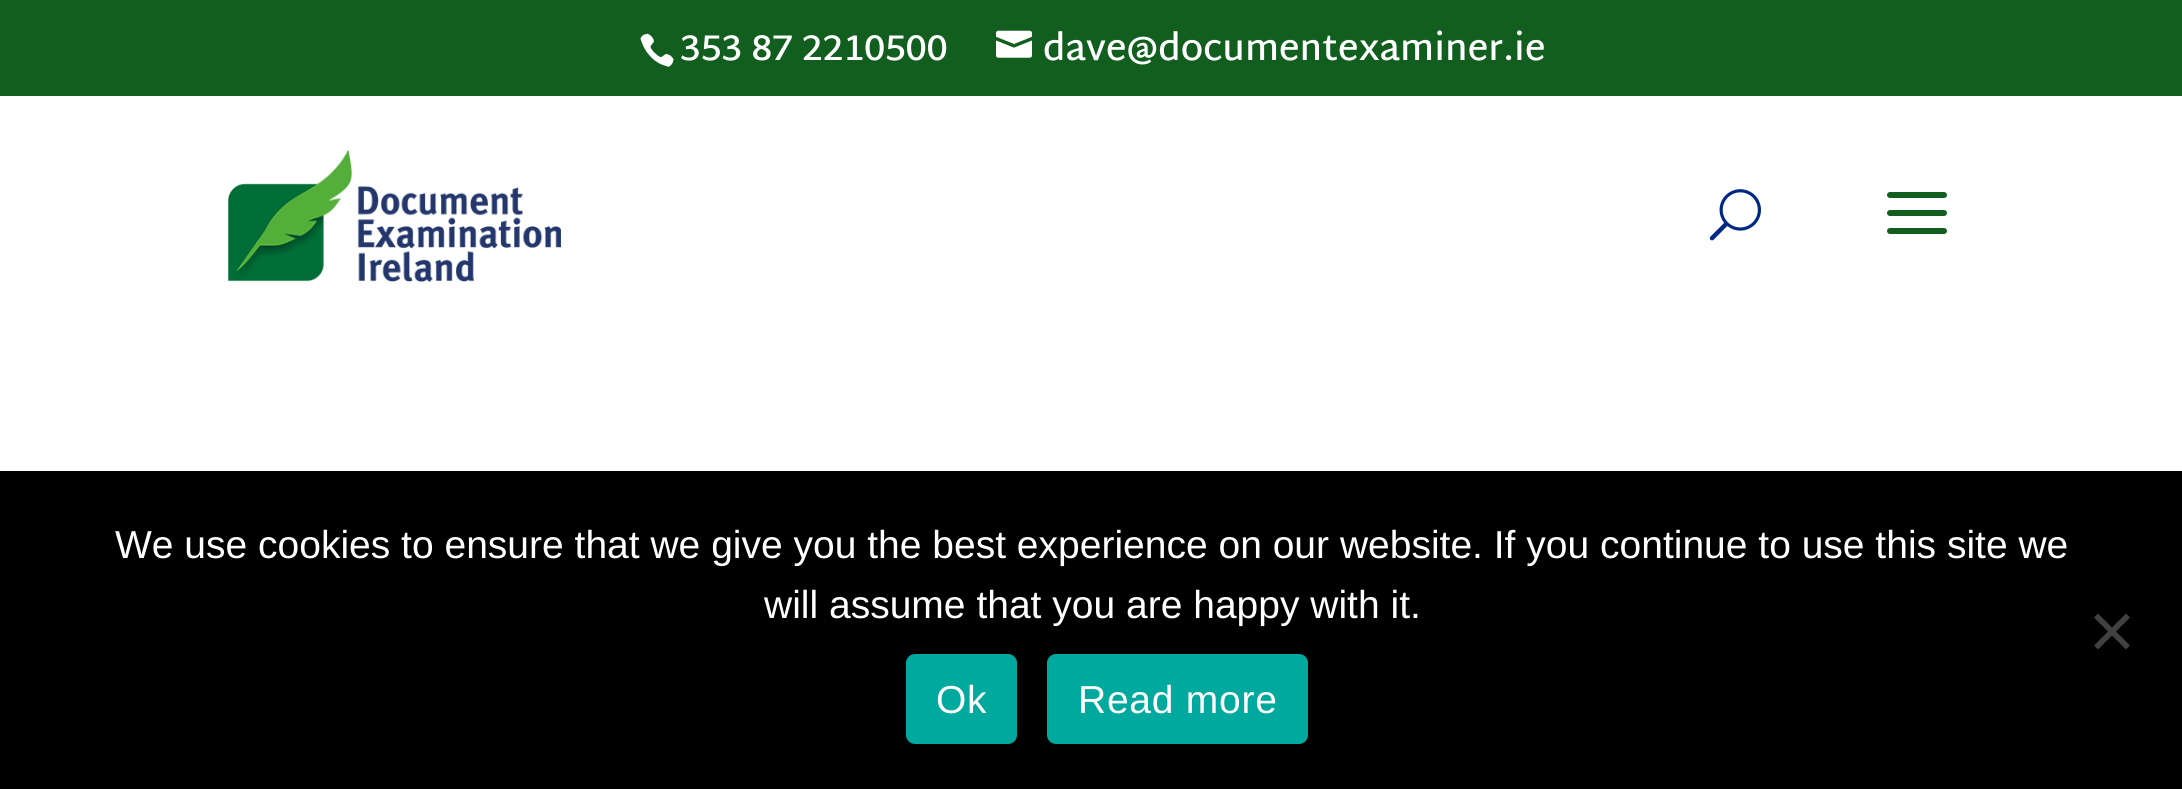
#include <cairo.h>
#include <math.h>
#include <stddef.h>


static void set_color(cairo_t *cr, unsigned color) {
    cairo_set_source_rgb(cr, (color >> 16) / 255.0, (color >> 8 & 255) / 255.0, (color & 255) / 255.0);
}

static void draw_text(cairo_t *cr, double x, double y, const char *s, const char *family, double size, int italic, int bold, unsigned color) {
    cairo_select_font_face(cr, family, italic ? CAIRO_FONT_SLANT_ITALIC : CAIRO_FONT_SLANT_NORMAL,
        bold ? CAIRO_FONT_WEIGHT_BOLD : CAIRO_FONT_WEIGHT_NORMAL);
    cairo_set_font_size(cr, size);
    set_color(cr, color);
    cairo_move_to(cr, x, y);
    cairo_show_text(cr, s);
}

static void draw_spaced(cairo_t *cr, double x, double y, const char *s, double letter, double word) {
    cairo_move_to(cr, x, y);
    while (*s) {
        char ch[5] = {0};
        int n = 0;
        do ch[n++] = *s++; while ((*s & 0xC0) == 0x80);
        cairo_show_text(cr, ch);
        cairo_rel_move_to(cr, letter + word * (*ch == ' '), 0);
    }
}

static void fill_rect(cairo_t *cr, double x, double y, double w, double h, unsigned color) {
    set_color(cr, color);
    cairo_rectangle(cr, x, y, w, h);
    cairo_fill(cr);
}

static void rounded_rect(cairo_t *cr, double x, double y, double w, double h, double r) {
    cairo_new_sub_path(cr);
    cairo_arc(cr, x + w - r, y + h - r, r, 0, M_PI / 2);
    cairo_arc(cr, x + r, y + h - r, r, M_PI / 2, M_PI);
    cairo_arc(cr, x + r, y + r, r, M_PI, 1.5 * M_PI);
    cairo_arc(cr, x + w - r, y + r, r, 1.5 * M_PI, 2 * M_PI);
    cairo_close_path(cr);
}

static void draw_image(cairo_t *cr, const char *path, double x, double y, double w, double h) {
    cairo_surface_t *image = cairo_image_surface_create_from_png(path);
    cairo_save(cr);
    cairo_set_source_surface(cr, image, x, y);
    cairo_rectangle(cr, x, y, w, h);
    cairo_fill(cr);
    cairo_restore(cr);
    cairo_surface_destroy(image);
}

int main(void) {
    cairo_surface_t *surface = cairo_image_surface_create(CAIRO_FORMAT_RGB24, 2182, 789);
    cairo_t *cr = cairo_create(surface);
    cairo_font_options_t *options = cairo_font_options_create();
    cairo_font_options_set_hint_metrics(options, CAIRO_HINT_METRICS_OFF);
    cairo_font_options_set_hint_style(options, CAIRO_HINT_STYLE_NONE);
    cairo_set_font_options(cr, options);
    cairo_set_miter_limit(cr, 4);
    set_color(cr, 0xFFFFFF);
    cairo_paint(cr);
    fill_rect(cr, 0, 0, 2182, 96, 0x115E1F);
    draw_image(cr, "assets/img1.png", 640, 33, 34, 34);
    draw_text(cr, 680, 60, "353 87 2210500", "Martel Sans SemiBold", 36, 0, 0, 0xFFFFFF);
    draw_image(cr, "assets/img2.png", 996, 30, 36, 28);
    draw_text(cr, 1043, 60, "dave@documentexaminer.ie", "Martel Sans SemiBold", 36, 0, 0, 0xFFFFFF);
    draw_image(cr, "assets/img3.png", 228, 150, 333, 132);
    draw_image(cr, "assets/img4.png", 1709, 189, 52, 52);
    draw_image(cr, "assets/img5.png", 1887, 192, 60, 42);
    fill_rect(cr, 0, 471, 2182, 318, 0x000000);
    draw_text(cr, 115, 558, "We use cookies to ensure that we give you the best experience on our website. If you continue to use this site we", "Liberation Sans", 39, 0, 0, 0xFFFFFF);
    draw_text(cr, 764, 618, "will assume that you are happy with it.", "Liberation Sans", 39, 0, 0, 0xFFFFFF);
    set_color(cr, 0x404040);
    cairo_new_path(cr);
    cairo_move_to(cr, 2126, 613.5);
    cairo_line_to(cr, 2130, 617.5);
    cairo_line_to(cr, 2098, 649.5);
    cairo_line_to(cr, 2094, 645.5);
    cairo_close_path(cr);
    cairo_fill(cr);
    cairo_new_path(cr);
    cairo_move_to(cr, 2094, 617.5);
    cairo_line_to(cr, 2098, 613.5);
    cairo_line_to(cr, 2130, 645.5);
    cairo_line_to(cr, 2126, 649.5);
    cairo_close_path(cr);
    cairo_fill(cr);
    set_color(cr, 0x00A99D);
    rounded_rect(cr, 906, 654, 111, 90, 9);
    cairo_fill(cr);
    set_color(cr, 0xFFFFFF);
    draw_spaced(cr, 936, 713, "Ok", 0.75, 0);
    set_color(cr, 0x00A99D);
    rounded_rect(cr, 1047, 654, 261, 90, 9);
    cairo_fill(cr);
    set_color(cr, 0xFFFFFF);
    draw_spaced(cr, 1078, 713, "Read more", 0.75, 0);
    cairo_surface_write_to_png(surface, "output.png");
    cairo_font_options_destroy(options);
    cairo_destroy(cr);
    cairo_surface_destroy(surface);
    return 0;
}
